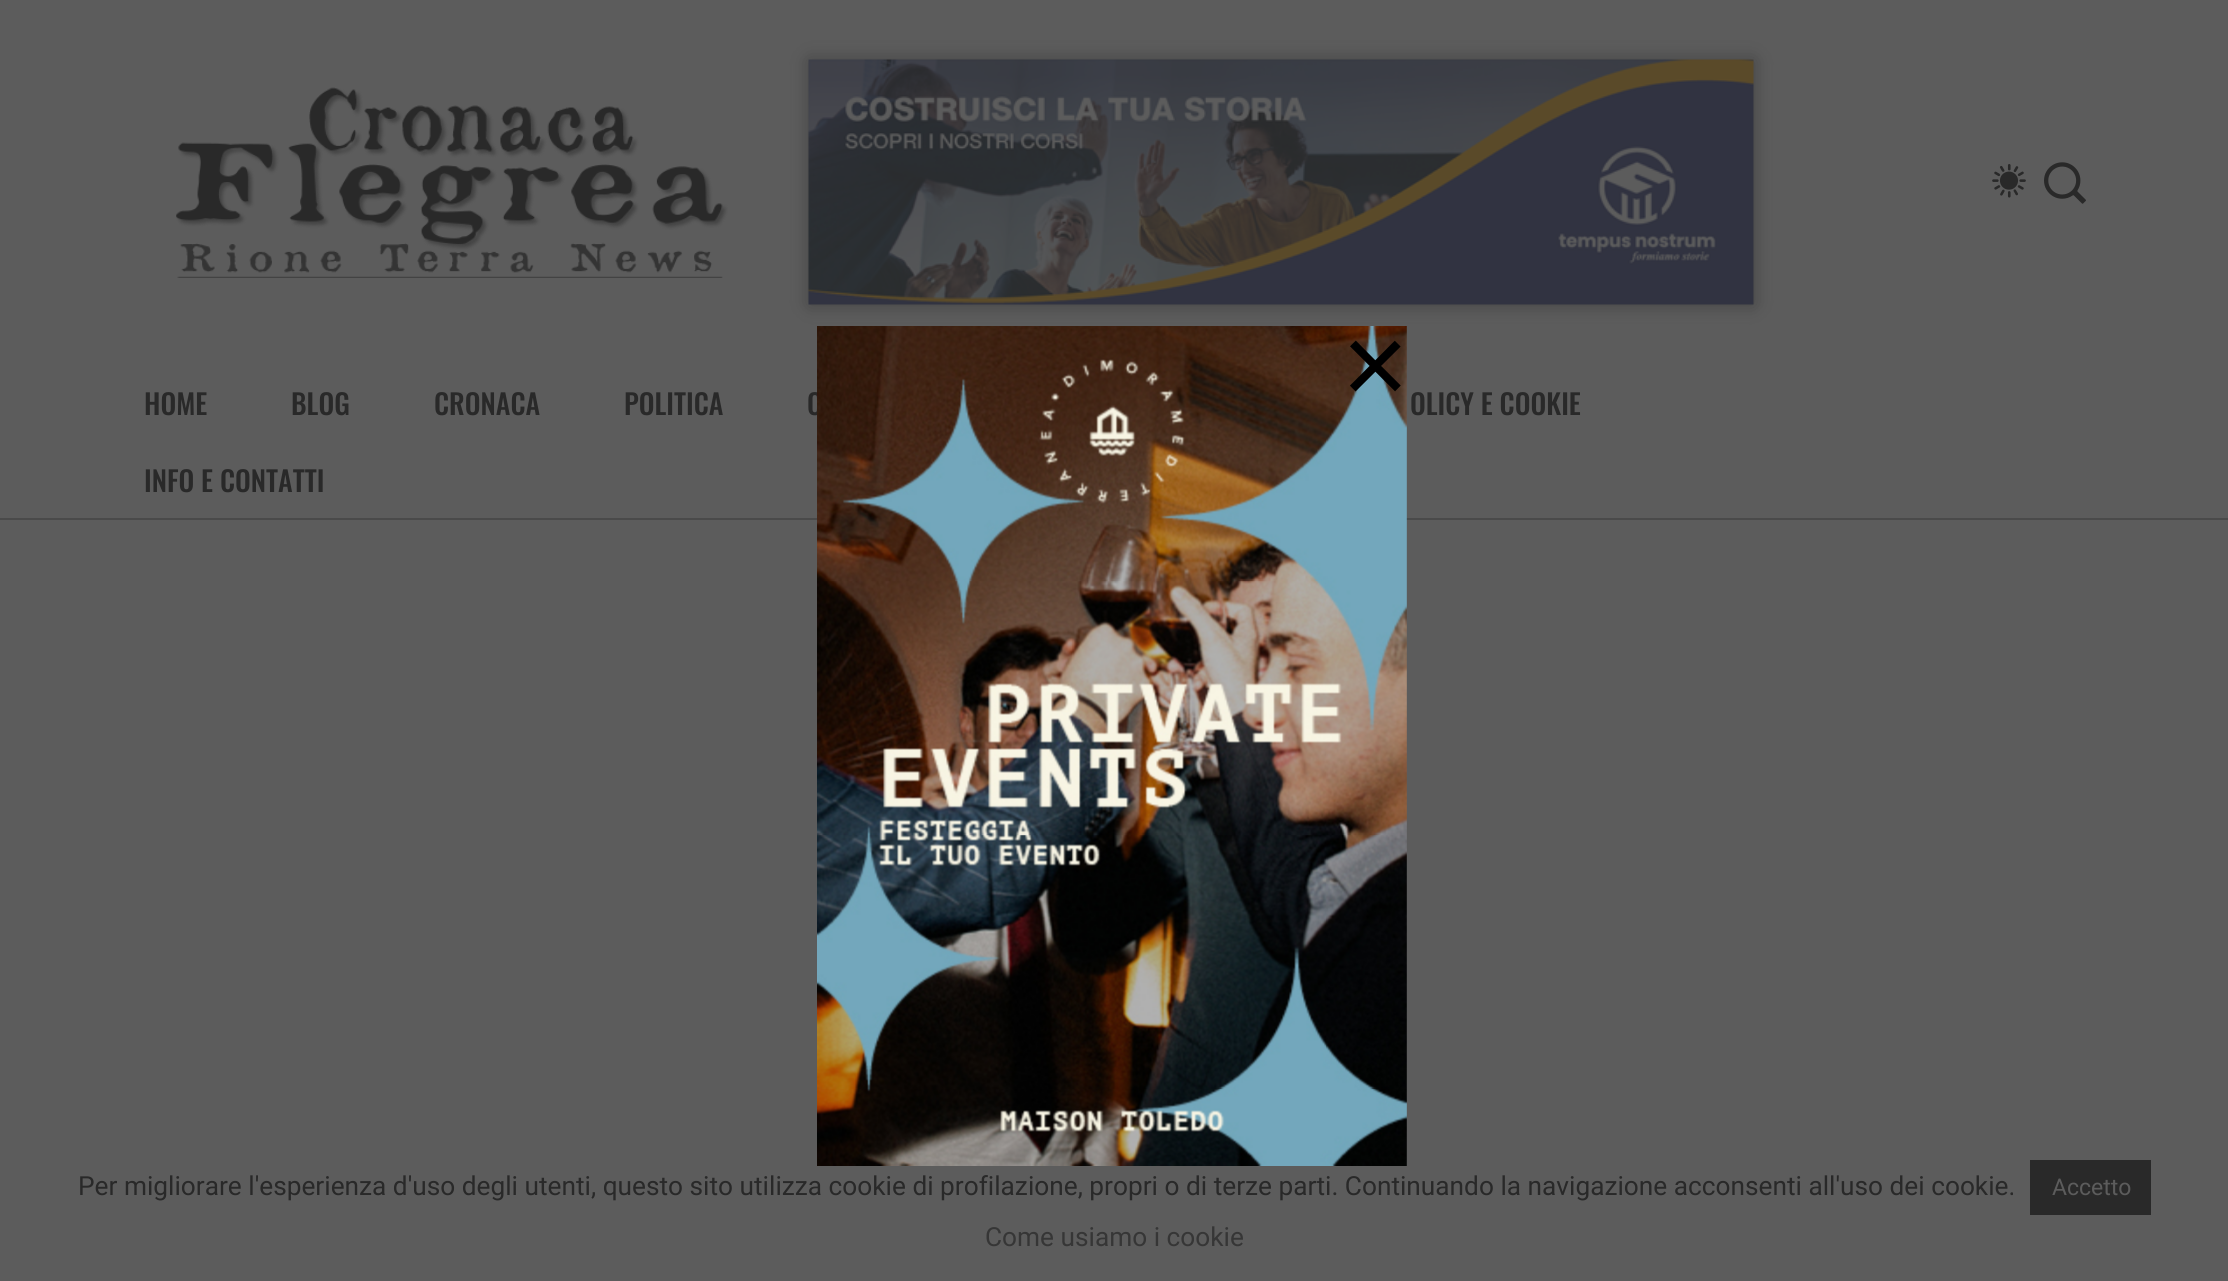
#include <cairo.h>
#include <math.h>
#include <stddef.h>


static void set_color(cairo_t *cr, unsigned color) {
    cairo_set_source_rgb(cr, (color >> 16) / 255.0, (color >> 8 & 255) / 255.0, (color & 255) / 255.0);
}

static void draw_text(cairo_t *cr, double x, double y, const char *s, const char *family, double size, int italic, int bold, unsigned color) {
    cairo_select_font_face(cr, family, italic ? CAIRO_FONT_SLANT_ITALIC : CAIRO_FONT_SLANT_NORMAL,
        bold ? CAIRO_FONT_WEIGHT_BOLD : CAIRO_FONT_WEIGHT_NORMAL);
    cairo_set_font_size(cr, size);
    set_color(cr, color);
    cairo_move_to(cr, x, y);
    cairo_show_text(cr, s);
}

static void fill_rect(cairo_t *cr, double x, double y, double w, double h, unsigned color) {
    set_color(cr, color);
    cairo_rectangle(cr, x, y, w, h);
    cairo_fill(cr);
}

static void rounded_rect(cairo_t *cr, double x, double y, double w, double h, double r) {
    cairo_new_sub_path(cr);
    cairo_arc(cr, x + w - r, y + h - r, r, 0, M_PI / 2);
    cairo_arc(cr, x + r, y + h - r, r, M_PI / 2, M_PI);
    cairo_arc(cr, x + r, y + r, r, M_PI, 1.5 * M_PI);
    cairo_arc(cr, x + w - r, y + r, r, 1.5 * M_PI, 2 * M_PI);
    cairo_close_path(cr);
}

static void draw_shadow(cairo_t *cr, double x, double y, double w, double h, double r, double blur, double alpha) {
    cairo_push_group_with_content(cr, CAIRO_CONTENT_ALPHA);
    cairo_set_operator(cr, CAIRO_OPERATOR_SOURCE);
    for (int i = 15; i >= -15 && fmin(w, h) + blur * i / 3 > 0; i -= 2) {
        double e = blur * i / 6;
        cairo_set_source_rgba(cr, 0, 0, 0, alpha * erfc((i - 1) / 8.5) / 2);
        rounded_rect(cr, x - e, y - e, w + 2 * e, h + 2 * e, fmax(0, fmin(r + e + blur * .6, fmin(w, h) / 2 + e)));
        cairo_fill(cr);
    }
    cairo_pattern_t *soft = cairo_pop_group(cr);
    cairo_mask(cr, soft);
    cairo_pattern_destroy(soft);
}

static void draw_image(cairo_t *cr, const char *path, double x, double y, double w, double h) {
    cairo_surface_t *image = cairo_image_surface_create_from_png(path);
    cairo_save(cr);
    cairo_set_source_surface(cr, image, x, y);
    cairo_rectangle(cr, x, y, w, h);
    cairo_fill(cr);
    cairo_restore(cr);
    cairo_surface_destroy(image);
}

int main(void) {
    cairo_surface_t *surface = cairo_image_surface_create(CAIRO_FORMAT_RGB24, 2228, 1281);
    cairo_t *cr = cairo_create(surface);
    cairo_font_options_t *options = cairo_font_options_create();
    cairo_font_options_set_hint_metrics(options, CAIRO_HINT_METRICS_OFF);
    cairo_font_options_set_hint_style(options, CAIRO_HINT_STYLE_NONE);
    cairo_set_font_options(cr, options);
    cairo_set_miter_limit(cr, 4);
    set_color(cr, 0x5C5C5C);
    cairo_paint(cr);
    set_color(cr, 0x292929);
    draw_shadow(cr, 809, 60, 945, 245, 0, 9, 0.5);
    fill_rect(cr, 0, 518, 2228, 2, 0x4A4A4A);
    draw_text(cr, 807, 415, "C", "Oswald Medium", 28, 0, 0, 0x292929);
    draw_image(cr, "assets/img1.png", 817, 326, 590, 840);
    draw_text(cr, 1342, 404, "×", "Liberation Sans", 114, 0, 0, 0x000000);
    draw_image(cr, "assets/img2.png", 176, 87, 552, 191);
    draw_image(cr, "assets/img3.png", 808, 59, 946, 246);
    draw_image(cr, "assets/img4.png", 1992, 164, 34, 34);
    draw_image(cr, "assets/img5.png", 2044, 162, 42, 42);
    draw_text(cr, 144, 415, "HOME", "Oswald Medium", 28, 0, 0, 0x292929);
    draw_text(cr, 291, 415, "BLOG", "Oswald Medium", 28, 0, 0, 0x292929);
    draw_text(cr, 434, 415, "CRONACA", "Oswald Medium", 28, 0, 0, 0x292929);
    draw_text(cr, 624, 415, "POLITICA", "Oswald Medium", 28, 0, 0, 0x292929);
    draw_text(cr, 1410, 415, "OLICY E COOKIE", "Oswald Medium", 28, 0, 0, 0x292929);
    draw_text(cr, 144, 492, "INFO E CONTATTI", "Oswald Medium", 28, 0, 0, 0x292929);
    draw_text(cr, 78, 1195, "Per migliorare l'esperienza d'uso degli utenti, questo sito utilizza cookie di profilazione, propri o di terze parti. Continuando la navigazione acconsenti all'uso dei cookie.", "Roboto", 26.25, 0, 0, 0x292929);
    fill_rect(cr, 2030, 1160, 121, 55, 0x292929);
    draw_text(cr, 2052, 1195, "Accetto", "Roboto", 23, 0, 0, 0x5C5C5C);
    draw_text(cr, 985, 1246, "Come usiamo i cookie", "Roboto", 26.25, 0, 0, 0x363636);
    cairo_surface_write_to_png(surface, "output.png");
    cairo_font_options_destroy(options);
    cairo_destroy(cr);
    cairo_surface_destroy(surface);
    return 0;
}
